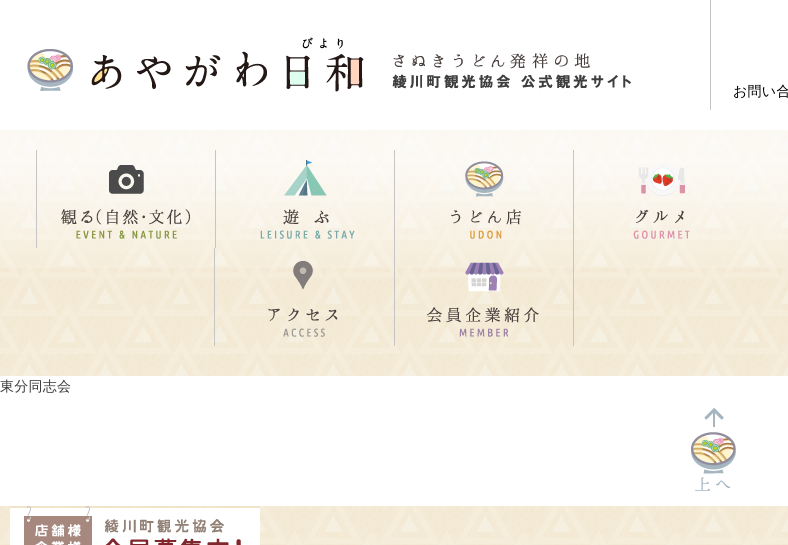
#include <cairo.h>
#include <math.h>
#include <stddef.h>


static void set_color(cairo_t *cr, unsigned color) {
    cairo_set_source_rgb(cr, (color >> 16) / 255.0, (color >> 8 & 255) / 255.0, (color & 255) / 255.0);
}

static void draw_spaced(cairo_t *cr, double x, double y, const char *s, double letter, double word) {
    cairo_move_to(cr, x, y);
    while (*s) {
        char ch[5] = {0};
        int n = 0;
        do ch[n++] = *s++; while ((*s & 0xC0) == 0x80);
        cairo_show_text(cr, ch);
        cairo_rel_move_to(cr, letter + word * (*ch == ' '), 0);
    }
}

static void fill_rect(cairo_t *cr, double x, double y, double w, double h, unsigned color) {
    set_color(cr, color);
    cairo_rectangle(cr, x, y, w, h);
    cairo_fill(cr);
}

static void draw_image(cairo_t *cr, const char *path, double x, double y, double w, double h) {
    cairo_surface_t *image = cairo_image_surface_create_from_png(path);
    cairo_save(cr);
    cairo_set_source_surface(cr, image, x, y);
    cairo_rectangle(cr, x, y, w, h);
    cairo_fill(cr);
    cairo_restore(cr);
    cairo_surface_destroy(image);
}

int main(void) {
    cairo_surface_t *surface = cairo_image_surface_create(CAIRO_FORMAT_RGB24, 788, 545);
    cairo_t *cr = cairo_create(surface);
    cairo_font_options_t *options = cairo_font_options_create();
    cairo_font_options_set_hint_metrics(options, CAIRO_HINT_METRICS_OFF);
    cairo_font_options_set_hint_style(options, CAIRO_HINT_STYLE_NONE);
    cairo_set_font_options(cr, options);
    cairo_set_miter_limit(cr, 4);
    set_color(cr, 0xFFFFFF);
    cairo_paint(cr);
    draw_image(cr, "assets/img1.png", 0, 130, 788, 415);
    draw_image(cr, "assets/img2.png", 27, 37, 604, 55);
    fill_rect(cr, 710, 0, 1, 110, 0xC5C5C5);
    cairo_select_font_face(cr, "WenQuanYi Zen Hei Medium", CAIRO_FONT_SLANT_NORMAL, CAIRO_FONT_WEIGHT_NORMAL);
    cairo_set_font_size(cr, 14);
    set_color(cr, 0x000000);
    draw_spaced(cr, 733, 96, "お問い合", 0.25, 0);
    draw_image(cr, "assets/img3.png", 0, 130, 788, 138);
    fill_rect(cr, 36, 150, 1, 98, 0xC5C5C5);
    draw_image(cr, "assets/img4.png", 61, 165, 129, 74);
    fill_rect(cr, 215, 150, 1, 98, 0xC5C5C5);
    draw_image(cr, "assets/img5.png", 260, 160, 95, 79);
    fill_rect(cr, 394, 150, 1, 196, 0xC5C5C5);
    draw_image(cr, "assets/img6.png", 451, 161, 70, 78);
    fill_rect(cr, 573, 150, 1, 196, 0xC5C5C5);
    draw_image(cr, "assets/img7.png", 633, 163, 57, 76);
    fill_rect(cr, 214, 248, 1, 98, 0xC5C5C5);
    draw_image(cr, "assets/img8.png", 268, 261, 70, 76);
    draw_image(cr, "assets/img9.png", 426, 262, 113, 75);
    fill_rect(cr, 0, 376, 788, 130, 0xFFFFFF);
    set_color(cr, 0x3E3E3E);
    draw_spaced(cr, 0, 391, "東分同志会", 0.25, 0);
    draw_image(cr, "assets/img10.png", 10, 506, 250, 39);
    draw_image(cr, "assets/img11.png", 691, 407, 45, 84);
    cairo_surface_write_to_png(surface, "output.png");
    cairo_font_options_destroy(options);
    cairo_destroy(cr);
    cairo_surface_destroy(surface);
    return 0;
}
